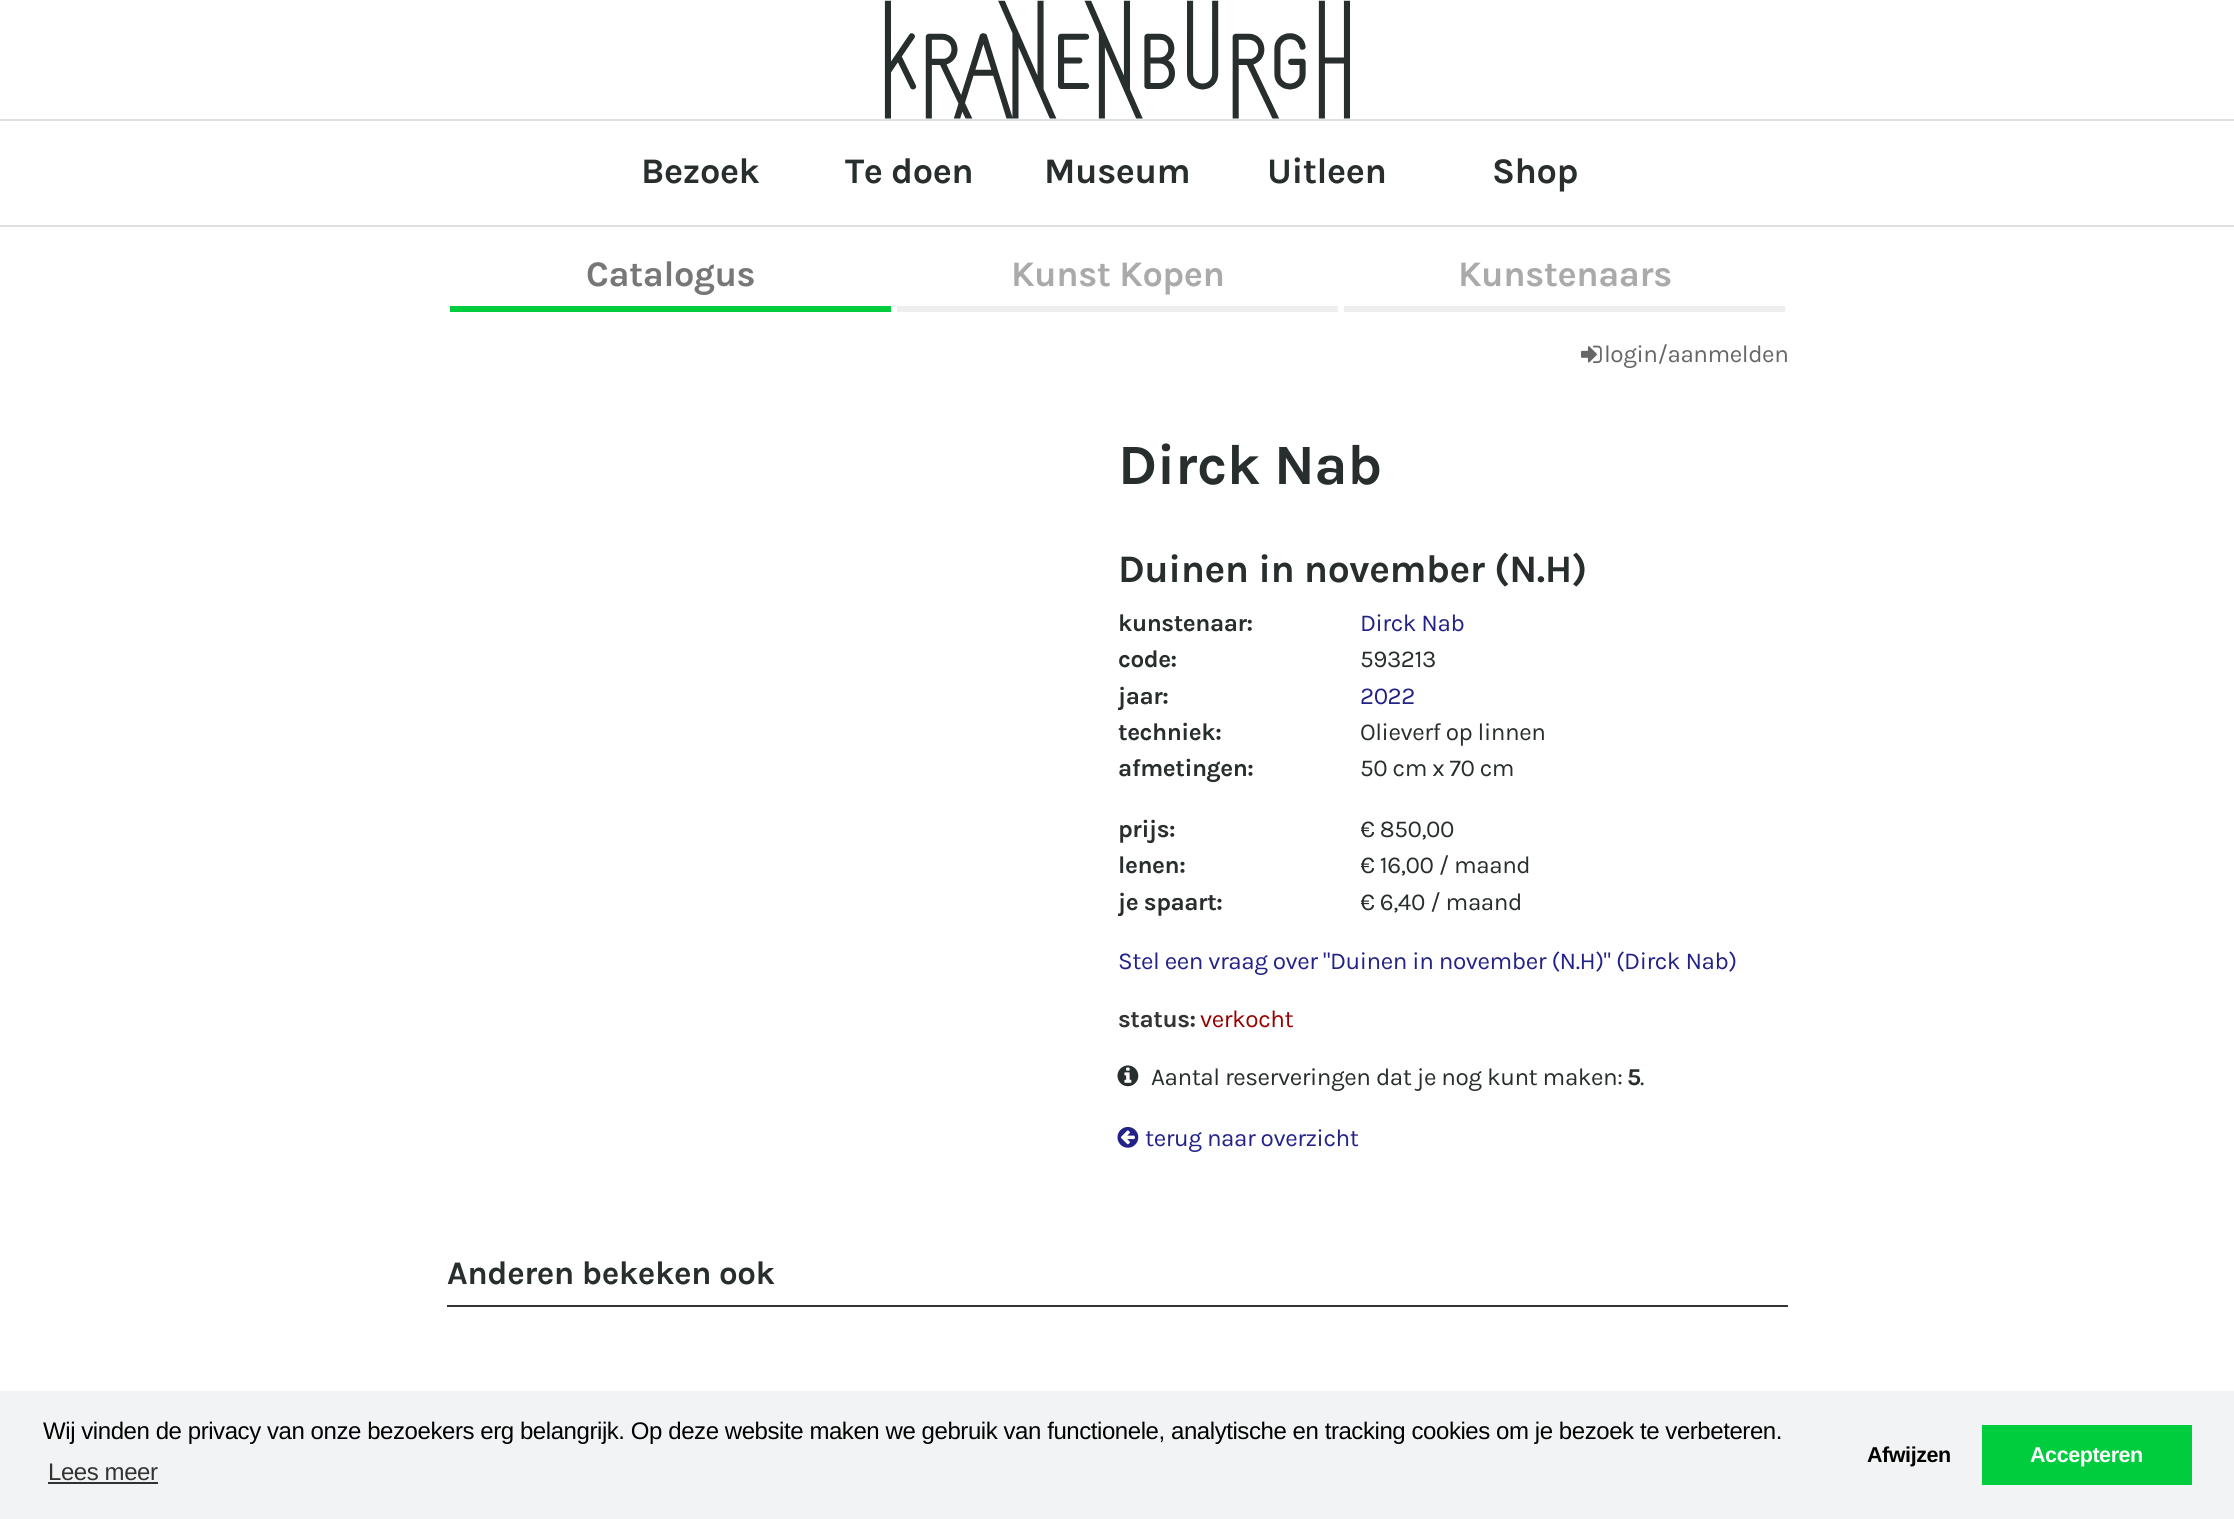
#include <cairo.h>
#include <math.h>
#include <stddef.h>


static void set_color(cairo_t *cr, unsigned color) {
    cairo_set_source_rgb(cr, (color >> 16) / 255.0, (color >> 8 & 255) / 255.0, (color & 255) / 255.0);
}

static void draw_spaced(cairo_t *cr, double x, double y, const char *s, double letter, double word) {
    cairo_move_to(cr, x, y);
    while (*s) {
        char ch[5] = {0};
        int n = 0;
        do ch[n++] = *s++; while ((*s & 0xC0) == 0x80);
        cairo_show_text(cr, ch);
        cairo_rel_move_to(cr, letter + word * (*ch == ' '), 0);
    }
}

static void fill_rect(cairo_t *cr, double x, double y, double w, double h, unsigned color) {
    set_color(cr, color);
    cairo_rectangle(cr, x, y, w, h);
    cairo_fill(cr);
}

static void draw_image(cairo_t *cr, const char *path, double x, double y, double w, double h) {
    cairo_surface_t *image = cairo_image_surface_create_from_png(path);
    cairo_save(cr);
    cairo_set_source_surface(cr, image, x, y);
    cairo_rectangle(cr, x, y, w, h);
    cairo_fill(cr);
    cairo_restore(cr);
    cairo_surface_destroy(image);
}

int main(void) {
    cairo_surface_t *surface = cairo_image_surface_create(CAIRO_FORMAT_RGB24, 2234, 1519);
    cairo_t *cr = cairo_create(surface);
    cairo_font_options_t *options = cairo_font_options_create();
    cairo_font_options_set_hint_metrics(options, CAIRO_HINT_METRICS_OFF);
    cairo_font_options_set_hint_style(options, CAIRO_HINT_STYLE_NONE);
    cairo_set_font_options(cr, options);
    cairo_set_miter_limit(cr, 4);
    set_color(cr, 0xFFFFFF);
    cairo_paint(cr);
    draw_image(cr, "assets/img1.png", 884, 0, 466, 119);
    fill_rect(cr, 0, 119, 2234, 2, 0xDDE1E3);
    fill_rect(cr, 0, 225, 2234, 2, 0xDDE1E3);
    cairo_select_font_face(cr, "Karla", CAIRO_FONT_SLANT_NORMAL, CAIRO_FONT_WEIGHT_BOLD);
    cairo_set_font_size(cr, 36);
    set_color(cr, 0x282D2D);
    draw_spaced(cr, 641, 183, "Bezoek", -0.43, 0);
    draw_spaced(cr, 845, 183, "Te doen", -0.43, 0);
    draw_spaced(cr, 1044, 183, "Museum", -0.43, 0);
    draw_spaced(cr, 1267, 183, "Uitleen", -0.43, 0);
    draw_spaced(cr, 1492, 183, "Shop", -0.43, 0);
    fill_rect(cr, 450, 306, 441, 6, 0x00CD3E);
    set_color(cr, 0x777777);
    draw_spaced(cr, 586, 286, "Catalogus", -0.43, 0);
    fill_rect(cr, 897, 306, 441, 6, 0xEEEEEE);
    set_color(cr, 0xAAAAAA);
    draw_spaced(cr, 1011, 286, "Kunst Kopen", -0.43, 0);
    fill_rect(cr, 1344, 306, 441, 6, 0xEEEEEE);
    set_color(cr, 0xAAAAAA);
    draw_spaced(cr, 1458, 286, "Kunstenaars", -0.43, 0);
    draw_image(cr, "assets/img2.png", 1581, 345, 21, 18);
    cairo_select_font_face(cr, "Karla", CAIRO_FONT_SLANT_NORMAL, CAIRO_FONT_WEIGHT_NORMAL);
    cairo_set_font_size(cr, 24.25);
    set_color(cr, 0x666666);
    draw_spaced(cr, 1604, 362, "login/aanmelden", -0.43, 0);
    cairo_select_font_face(cr, "Karla", CAIRO_FONT_SLANT_NORMAL, CAIRO_FONT_WEIGHT_BOLD);
    cairo_set_font_size(cr, 57);
    set_color(cr, 0x282D2D);
    draw_spaced(cr, 1118, 484, "Dirck Nab", -0.43, 0);
    cairo_set_font_size(cr, 39);
    draw_spaced(cr, 1118, 582, "Duinen in november (N.H)", -0.43, 0);
    cairo_set_font_size(cr, 24.25);
    draw_spaced(cr, 1118, 631, "kunstenaar:", -0.43, 0);
    cairo_select_font_face(cr, "Karla", CAIRO_FONT_SLANT_NORMAL, CAIRO_FONT_WEIGHT_NORMAL);
    set_color(cr, 0x222288);
    draw_spaced(cr, 1360, 631, "Dirck Nab", -0.43, 0);
    cairo_select_font_face(cr, "Karla", CAIRO_FONT_SLANT_NORMAL, CAIRO_FONT_WEIGHT_BOLD);
    set_color(cr, 0x282D2D);
    draw_spaced(cr, 1118, 667, "code:", -0.43, 0);
    cairo_select_font_face(cr, "Karla", CAIRO_FONT_SLANT_NORMAL, CAIRO_FONT_WEIGHT_NORMAL);
    draw_spaced(cr, 1360, 667, "593213", -0.43, 0);
    cairo_save(cr);
    cairo_rectangle(cr, 1118, 606, 670, 182);
    cairo_clip(cr);
    cairo_select_font_face(cr, "Karla", CAIRO_FONT_SLANT_NORMAL, CAIRO_FONT_WEIGHT_BOLD);
    draw_spaced(cr, 1118, 704, "jaar:", -0.43, 0);
    cairo_restore(cr);
    set_color(cr, 0x222288);
    draw_spaced(cr, 1360, 704, "2022", -0.43, 0);
    cairo_select_font_face(cr, "Karla", CAIRO_FONT_SLANT_NORMAL, CAIRO_FONT_WEIGHT_BOLD);
    set_color(cr, 0x282D2D);
    draw_spaced(cr, 1118, 740, "techniek:", -0.43, 0);
    cairo_select_font_face(cr, "Karla", CAIRO_FONT_SLANT_NORMAL, CAIRO_FONT_WEIGHT_NORMAL);
    draw_spaced(cr, 1360, 740, "Olieverf op linnen", -0.43, 0);
    cairo_select_font_face(cr, "Karla", CAIRO_FONT_SLANT_NORMAL, CAIRO_FONT_WEIGHT_BOLD);
    draw_spaced(cr, 1118, 776, "afmetingen:", -0.43, 0);
    cairo_select_font_face(cr, "Karla", CAIRO_FONT_SLANT_NORMAL, CAIRO_FONT_WEIGHT_NORMAL);
    draw_spaced(cr, 1360, 776, "50 cm x 70 cm", -0.43, 0);
    cairo_select_font_face(cr, "Karla", CAIRO_FONT_SLANT_NORMAL, CAIRO_FONT_WEIGHT_BOLD);
    draw_spaced(cr, 1118, 837, "prijs:", -0.43, 0);
    cairo_save(cr);
    cairo_rectangle(cr, 1361, 812, 427, 36);
    cairo_clip(cr);
    cairo_select_font_face(cr, "Karla", CAIRO_FONT_SLANT_NORMAL, CAIRO_FONT_WEIGHT_NORMAL);
    draw_spaced(cr, 1360, 837, "€ 850,00", -0.43, 0);
    cairo_restore(cr);
    draw_spaced(cr, 1118, 873, "lenen:", -0.43, 0);
    cairo_save(cr);
    cairo_rectangle(cr, 1361, 848, 427, 36);
    cairo_clip(cr);
    cairo_select_font_face(cr, "Karla", CAIRO_FONT_SLANT_NORMAL, CAIRO_FONT_WEIGHT_NORMAL);
    draw_spaced(cr, 1360, 873, "€ 16,00 / maand", -0.43, 0);
    cairo_restore(cr);
    cairo_save(cr);
    cairo_rectangle(cr, 1118, 812, 670, 109);
    cairo_clip(cr);
    draw_spaced(cr, 1118, 910, "je spaart:", -0.43, 0);
    cairo_restore(cr);
    cairo_save(cr);
    cairo_rectangle(cr, 1361, 884, 427, 37);
    cairo_clip(cr);
    cairo_select_font_face(cr, "Karla", CAIRO_FONT_SLANT_NORMAL, CAIRO_FONT_WEIGHT_NORMAL);
    draw_spaced(cr, 1360, 910, "€ 6,40 / maand", -0.43, 0);
    cairo_restore(cr);
    cairo_select_font_face(cr, "Karla", CAIRO_FONT_SLANT_NORMAL, CAIRO_FONT_WEIGHT_NORMAL);
    set_color(cr, 0x222288);
    draw_spaced(cr, 1118, 969, "Stel een vraag over \"Duinen in november (N.H)\" (Dirck Nab)", -0.43, 0);
    cairo_select_font_face(cr, "Karla", CAIRO_FONT_SLANT_NORMAL, CAIRO_FONT_WEIGHT_BOLD);
    set_color(cr, 0x333333);
    draw_spaced(cr, 1118, 1027, "status:", -0.43, 0);
    cairo_select_font_face(cr, "Karla", CAIRO_FONT_SLANT_NORMAL, CAIRO_FONT_WEIGHT_NORMAL);
    set_color(cr, 0x990000);
    draw_spaced(cr, 1200, 1027, "verkocht", -0.43, 0);
    draw_image(cr, "assets/img3.png", 1117, 1065, 22, 22);
    set_color(cr, 0x282D2D);
    draw_spaced(cr, 1151, 1085, "Aantal reserveringen dat je nog kunt maken:", -0.43, 0);
    cairo_select_font_face(cr, "Karla", CAIRO_FONT_SLANT_NORMAL, CAIRO_FONT_WEIGHT_BOLD);
    draw_spaced(cr, 1627, 1085, "5", -0.43, 0);
    cairo_select_font_face(cr, "Karla", CAIRO_FONT_SLANT_NORMAL, CAIRO_FONT_WEIGHT_NORMAL);
    draw_spaced(cr, 1640, 1085, ".", -0.43, 0);
    draw_image(cr, "assets/img4.png", 1117, 1127, 22, 21);
    set_color(cr, 0x222288);
    draw_spaced(cr, 1145, 1146, "terug naar overzicht", -0.43, 0);
    fill_rect(cr, 447, 1305, 1341, 2, 0x333333);
    cairo_select_font_face(cr, "Karla", CAIRO_FONT_SLANT_NORMAL, CAIRO_FONT_WEIGHT_BOLD);
    cairo_set_font_size(cr, 33);
    set_color(cr, 0x282D2D);
    draw_spaced(cr, 447, 1284, "Anderen bekeken ook", -0.43, 0);
    fill_rect(cr, 0, 1391, 2234, 128, 0xF2F3F4);
    cairo_select_font_face(cr, "Liberation Sans", CAIRO_FONT_SLANT_NORMAL, CAIRO_FONT_WEIGHT_NORMAL);
    cairo_set_font_size(cr, 24);
    set_color(cr, 0x000000);
    draw_spaced(cr, 43, 1439, "Wij vinden de privacy van onze bezoekers erg belangrijk. Op deze website maken we gebruik van functionele, analytische en tracking cookies om je bezoek te verbeteren.", -0.43, 0);
    set_color(cr, 0x333333);
    draw_spaced(cr, 48, 1480, "Lees meer", -0.43, 0);
    fill_rect(cr, 48, 1482, 110, 2, 0x303131);
    cairo_select_font_face(cr, "Liberation Sans", CAIRO_FONT_SLANT_NORMAL, CAIRO_FONT_WEIGHT_BOLD);
    cairo_set_font_size(cr, 21.5);
    set_color(cr, 0x000000);
    draw_spaced(cr, 1867, 1462, "Afwijzen", -0.43, 0);
    fill_rect(cr, 1982, 1425, 210, 60, 0x00CD3E);
    set_color(cr, 0xFFFFFF);
    draw_spaced(cr, 2030, 1462, "Accepteren", -0.43, 0);
    cairo_surface_write_to_png(surface, "output.png");
    cairo_font_options_destroy(options);
    cairo_destroy(cr);
    cairo_surface_destroy(surface);
    return 0;
}
